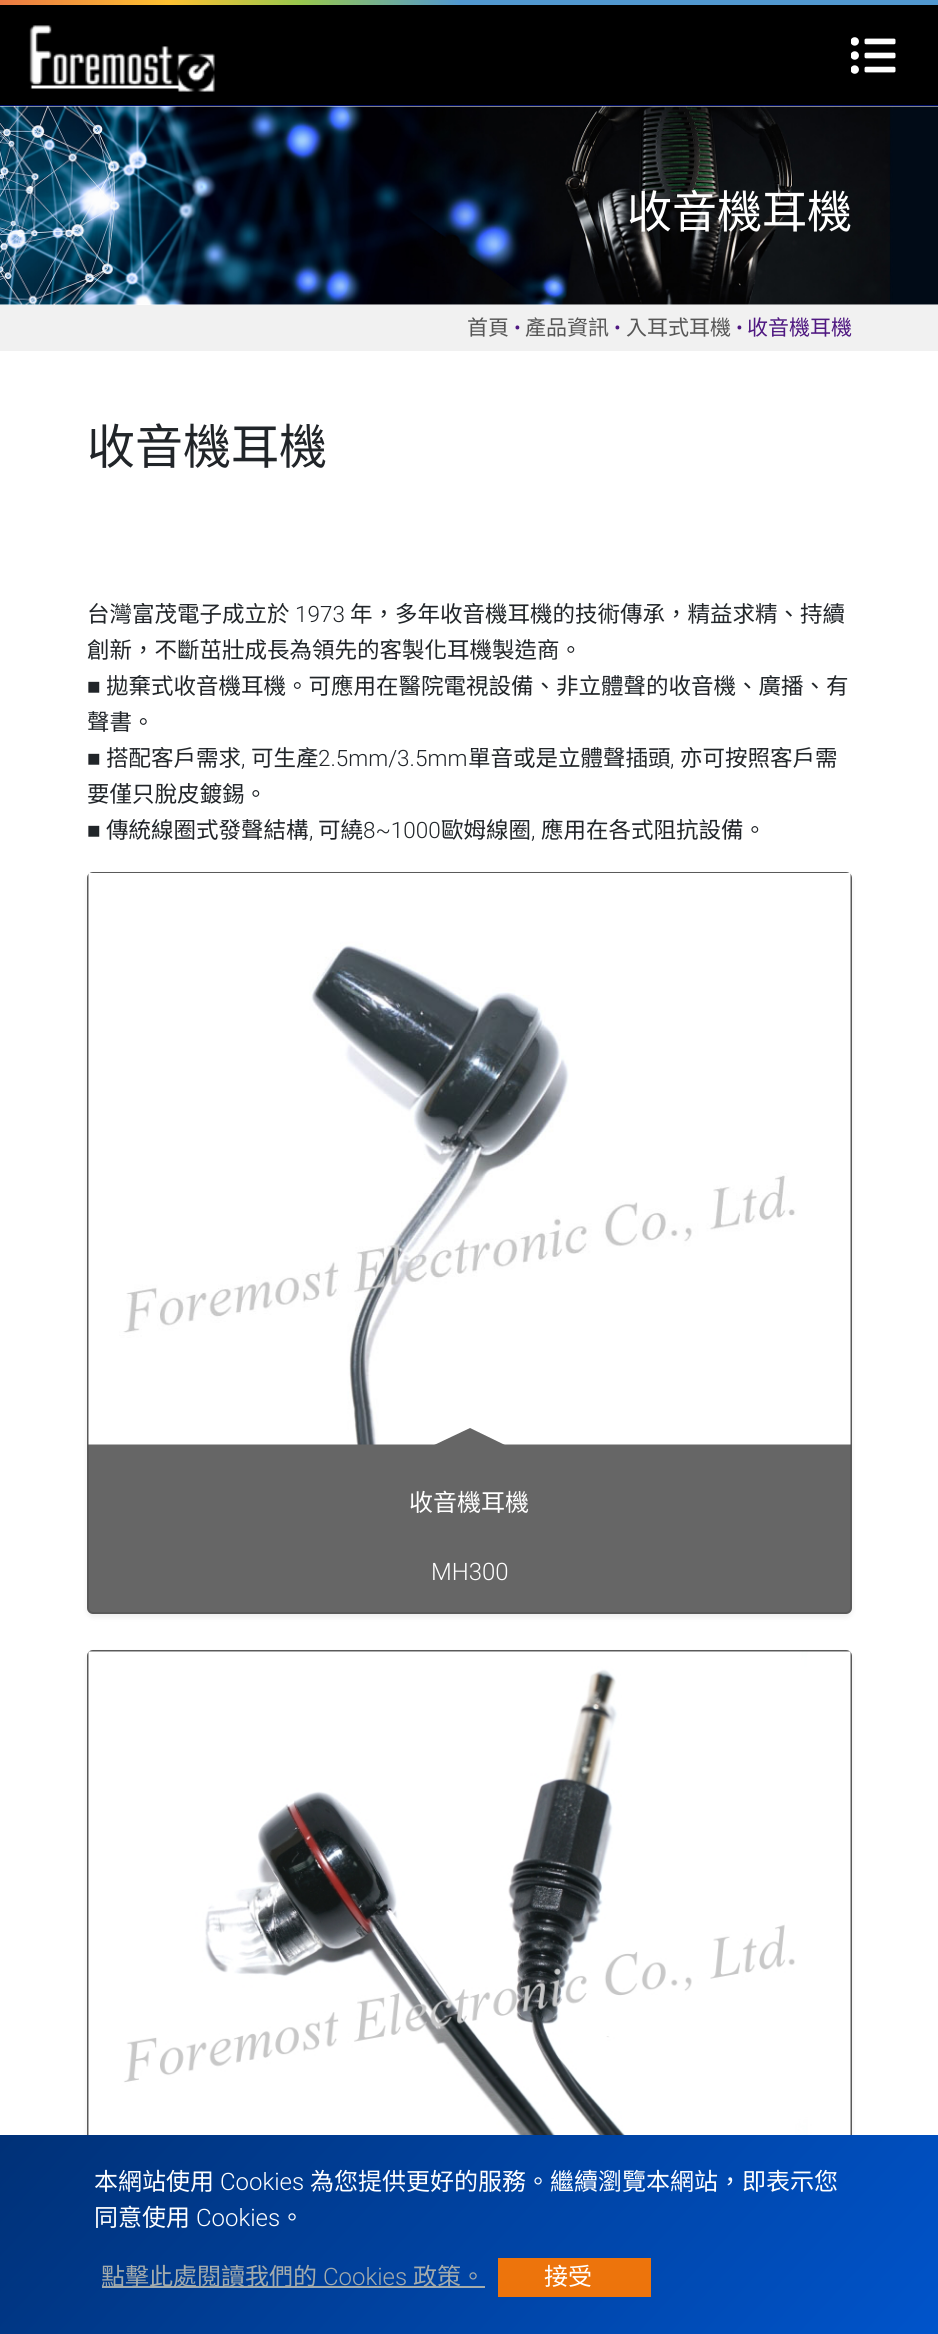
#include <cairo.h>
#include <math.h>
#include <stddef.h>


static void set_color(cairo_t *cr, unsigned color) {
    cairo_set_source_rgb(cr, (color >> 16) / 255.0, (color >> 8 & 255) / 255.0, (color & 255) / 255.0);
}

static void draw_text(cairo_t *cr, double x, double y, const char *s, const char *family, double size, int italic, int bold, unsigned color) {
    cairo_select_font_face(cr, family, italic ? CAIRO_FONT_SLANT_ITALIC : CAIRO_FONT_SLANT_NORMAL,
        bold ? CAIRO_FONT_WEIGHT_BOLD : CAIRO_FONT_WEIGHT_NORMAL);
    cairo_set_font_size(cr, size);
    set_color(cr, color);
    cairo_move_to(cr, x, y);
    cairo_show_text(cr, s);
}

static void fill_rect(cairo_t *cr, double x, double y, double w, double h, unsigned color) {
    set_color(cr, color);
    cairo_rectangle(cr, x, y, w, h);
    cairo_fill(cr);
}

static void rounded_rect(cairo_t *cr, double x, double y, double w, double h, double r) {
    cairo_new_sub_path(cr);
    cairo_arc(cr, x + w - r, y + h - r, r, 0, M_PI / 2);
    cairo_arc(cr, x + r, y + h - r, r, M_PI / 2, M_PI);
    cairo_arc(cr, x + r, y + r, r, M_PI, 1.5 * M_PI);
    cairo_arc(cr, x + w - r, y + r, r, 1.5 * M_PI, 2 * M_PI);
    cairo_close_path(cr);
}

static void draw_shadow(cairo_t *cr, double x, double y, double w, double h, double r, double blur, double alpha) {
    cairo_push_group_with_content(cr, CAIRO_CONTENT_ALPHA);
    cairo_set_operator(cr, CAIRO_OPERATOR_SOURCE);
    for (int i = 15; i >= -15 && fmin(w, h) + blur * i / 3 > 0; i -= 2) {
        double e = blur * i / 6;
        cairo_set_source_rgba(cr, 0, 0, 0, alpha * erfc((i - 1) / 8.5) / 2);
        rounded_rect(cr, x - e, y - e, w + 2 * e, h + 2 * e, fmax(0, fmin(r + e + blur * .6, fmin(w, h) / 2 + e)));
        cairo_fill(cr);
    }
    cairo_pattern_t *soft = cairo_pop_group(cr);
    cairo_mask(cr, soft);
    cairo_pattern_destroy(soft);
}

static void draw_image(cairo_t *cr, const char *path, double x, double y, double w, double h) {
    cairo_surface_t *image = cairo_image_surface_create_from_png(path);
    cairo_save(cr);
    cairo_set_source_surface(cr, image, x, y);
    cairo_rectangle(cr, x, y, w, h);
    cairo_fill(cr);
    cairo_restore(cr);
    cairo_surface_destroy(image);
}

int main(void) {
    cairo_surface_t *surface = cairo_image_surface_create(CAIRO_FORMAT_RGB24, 938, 2334);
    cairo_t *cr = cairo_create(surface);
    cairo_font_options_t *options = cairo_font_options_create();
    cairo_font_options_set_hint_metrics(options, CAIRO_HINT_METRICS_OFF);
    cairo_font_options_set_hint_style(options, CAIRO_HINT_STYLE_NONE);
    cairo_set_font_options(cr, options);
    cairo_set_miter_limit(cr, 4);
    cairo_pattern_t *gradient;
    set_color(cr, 0x000E69);
    cairo_paint(cr);
    gradient = cairo_pattern_create_linear(0, 2.3, 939, 2.2);
    cairo_pattern_add_color_stop_rgba(gradient, 0, 0.918, 0.475, 0.263, 1);
    cairo_pattern_add_color_stop_rgba(gradient, 0.18, 0.996, 0.757, 0.192, 1);
    cairo_pattern_add_color_stop_rgba(gradient, 0.32, 0.596, 0.78, 0.306, 1);
    cairo_pattern_add_color_stop_rgba(gradient, 0.49, 0.318, 0.596, 0.816, 1);
    cairo_pattern_add_color_stop_rgba(gradient, 1, 0.318, 0.596, 0.816, 1);
    cairo_set_source(cr, gradient);
    cairo_pattern_destroy(gradient);
    cairo_rectangle(cr, 0, 0, 938, 5);
    cairo_fill(cr);
    fill_rect(cr, 0, 5, 938, 100, 0x000000);
    draw_image(cr, "assets/img1.png", 29, 25, 186, 67);
    draw_image(cr, "assets/img2.png", 851, 37, 45, 37);
    fill_rect(cr, 0, 106, 938, 2029, 0xFFFFFF);
    draw_image(cr, "assets/img3.png", 0, 106, 938, 199);
    draw_text(cr, 627, 228, "收音機耳機", "Noto Sans CJK TC", 45, 0, 0, 0xFFFFFF);
    fill_rect(cr, 0, 305, 938, 46, 0xF1F1F1);
    draw_text(cr, 467, 335, "首頁", "Noto Sans CJK TC", 21, 0, 0, 0x565656);
    draw_text(cr, 514, 335, "•", "Roboto Light", 21, 0, 0, 0x4F1881);
    draw_text(cr, 525, 335, "產品資訊", "Noto Sans CJK TC", 21, 0, 0, 0x565656);
    draw_text(cr, 614, 335, "•", "Roboto Light", 21, 0, 0, 0x4F1881);
    draw_text(cr, 626, 335, "入耳式耳機", "Noto Sans CJK TC", 21, 0, 0, 0x565656);
    draw_text(cr, 736, 335, "•", "Roboto Light", 21, 0, 0, 0x4F1881);
    draw_text(cr, 747, 335, "收音機耳機", "Noto Sans CJK TC", 21, 0, 0, 0x4F1881);
    draw_text(cr, 87, 464, "收音機耳機", "Noto Sans CJK TC", 48, 0, 0, 0x212529);
    draw_text(cr, 87, 622, "台灣富茂電子成立於", "Noto Sans CJK TC", 22.5, 0, 0, 0x212529);
    draw_text(cr, 295, 622, "1973", "Roboto Light", 22.5, 0, 0, 0x212529);
    draw_text(cr, 350, 622, "年，多年收音機耳機的技術傳承，精益求精、持續", "Noto Sans CJK TC", 22.5, 0, 0, 0x212529);
    draw_text(cr, 87, 658, "創新，不斷茁壯成長為領先的客製化耳機製造商。", "Noto Sans CJK TC", 22.5, 0, 0, 0x212529);
    draw_text(cr, 87, 694, "■", "Liberation Serif", 22.5, 0, 0, 0x212529);
    draw_text(cr, 106, 694, "拋棄式收音機耳機。可應用在醫院電視設備、非立體聲的收音機、廣播、有", "Noto Sans CJK TC", 22.5, 0, 0, 0x212529);
    draw_text(cr, 87, 730, "聲書。", "Noto Sans CJK TC", 22.5, 0, 0, 0x212529);
    draw_text(cr, 87, 766, "■", "Liberation Serif", 22.5, 0, 0, 0x212529);
    draw_text(cr, 106, 766, "搭配客戶需求", "Noto Sans CJK TC", 22.5, 0, 0, 0x212529);
    draw_text(cr, 251, 766, "可生產", "Noto Sans CJK TC", 22.5, 0, 0, 0x212529);
    draw_text(cr, 318, 766, "2.5mm/3.5mm", "Roboto Light", 22.5, 0, 0, 0x212529);
    draw_text(cr, 468, 766, "單音或是立體聲插頭", "Noto Sans CJK TC", 22.5, 0, 0, 0x212529);
    draw_text(cr, 680, 766, "亦可按照客戶需", "Noto Sans CJK TC", 22.5, 0, 0, 0x212529);
    draw_text(cr, 241, 766, ",", "Roboto Light", 22.5, 0, 0, 0x212529);
    draw_text(cr, 670, 766, ",", "Roboto Light", 22.5, 0, 0, 0x212529);
    draw_text(cr, 87, 802, "要僅只脫皮鍍錫。", "Noto Sans CJK TC", 22.5, 0, 0, 0x212529);
    draw_text(cr, 87, 838, "■", "Liberation Serif", 22.5, 0, 0, 0x212529);
    draw_text(cr, 106, 838, "傳統線圈式發聲結構", "Noto Sans CJK TC", 22.5, 0, 0, 0x212529);
    draw_text(cr, 318, 838, "可繞", "Noto Sans CJK TC", 22.5, 0, 0, 0x212529);
    draw_text(cr, 363, 838, "8~1000", "Roboto Light", 22.5, 0, 0, 0x212529);
    draw_text(cr, 441, 838, "歐姆線圈", "Noto Sans CJK TC", 22.5, 0, 0, 0x212529);
    draw_text(cr, 541, 838, "應用在各式阻抗設備。", "Noto Sans CJK TC", 22.5, 0, 0, 0x212529);
    draw_text(cr, 309, 838, ",", "Roboto Light", 22.5, 0, 0, 0x212529);
    draw_text(cr, 531, 838, ",", "Roboto Light", 22.5, 0, 0, 0x212529);
    set_color(cr, 0x000000);
    draw_shadow(cr, 87, 875, 765, 742, 6, 3, 0.07);
    set_color(cr, 0x666666);
    rounded_rect(cr, 87, 872, 765, 742, 6);
    cairo_fill(cr);
    rounded_rect(cr, 88, 873, 763, 740, 5);
    cairo_set_source_rgba(cr, 0, 0, 0, 0.12);
    cairo_stroke(cr);
    draw_image(cr, "assets/img4.png", 88, 873, 763, 572);
    set_color(cr, 0x666666);
    cairo_new_path(cr);
    cairo_move_to(cr, 507, 1446);
    cairo_line_to(cr, 432, 1446);
    cairo_line_to(cr, 470, 1428);
    cairo_close_path(cr);
    cairo_fill(cr);
    draw_text(cr, 409, 1511, "收音機耳機", "Noto Sans CJK TC", 24, 0, 0, 0xFFFFFF);
    draw_text(cr, 431, 1580, "MH300", "Roboto Light", 24, 0, 0, 0xFFFFFF);
    set_color(cr, 0x000000);
    draw_shadow(cr, 87, 1653, 765, 680, 6, 3, 0.07);
    set_color(cr, 0x666666);
    rounded_rect(cr, 87, 1650, 765, 680, 6);
    cairo_fill(cr);
    rounded_rect(cr, 88, 1651, 763, 678, 5);
    cairo_set_source_rgba(cr, 0, 0, 0, 0.12);
    cairo_stroke(cr);
    draw_image(cr, "assets/img5.png", 88, 1651, 763, 484);
    gradient = cairo_pattern_create_linear(169, 1954, 770, 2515);
    cairo_pattern_add_color_stop_rgba(gradient, 0, 0, 0.192, 0.467, 1);
    cairo_pattern_add_color_stop_rgba(gradient, 1, 0, 0.329, 0.796, 1);
    cairo_set_source(cr, gradient);
    cairo_pattern_destroy(gradient);
    cairo_rectangle(cr, 0, 2135, 938, 199);
    cairo_fill(cr);
    draw_text(cr, 94, 2190, "本網站使用", "Noto Sans CJK TC", 24, 0, 0, 0xFFFFFF);
    draw_text(cr, 220, 2190, "Cookies", "Roboto Light", 24, 0, 0, 0xFFFFFF);
    draw_text(cr, 310, 2190, "為您提供更好的服務。繼續瀏覽本網站，即表示您", "Noto Sans CJK TC", 24, 0, 0, 0xFFFFFF);
    draw_text(cr, 94, 2226, "同意使用", "Noto Sans CJK TC", 24, 0, 0, 0xFFFFFF);
    draw_text(cr, 196, 2226, "Cookies", "Roboto Light", 24, 0, 0, 0xFFFFFF);
    draw_text(cr, 280, 2226, "。", "Noto Sans CJK TC", 24, 0, 0, 0xFFFFFF);
    fill_rect(cr, 102, 2286, 383, 2, 0xA2ABAD);
    draw_text(cr, 101, 2285, "點擊此處閱讀我們的", "Noto Sans CJK TC", 24, 0, 0, 0xA2ABAD);
    draw_text(cr, 323, 2285, "Cookies", "Roboto Light", 24, 0, 0, 0xA2ABAD);
    draw_text(cr, 413, 2285, "政策。", "Noto Sans CJK TC", 24, 0, 0, 0xA2ABAD);
    fill_rect(cr, 498, 2258, 153, 39, 0xED740C);
    draw_text(cr, 544, 2285, "接受", "Noto Sans CJK TC", 24, 0, 0, 0xFFFFFF);
    cairo_surface_write_to_png(surface, "output.png");
    cairo_font_options_destroy(options);
    cairo_destroy(cr);
    cairo_surface_destroy(surface);
    return 0;
}
